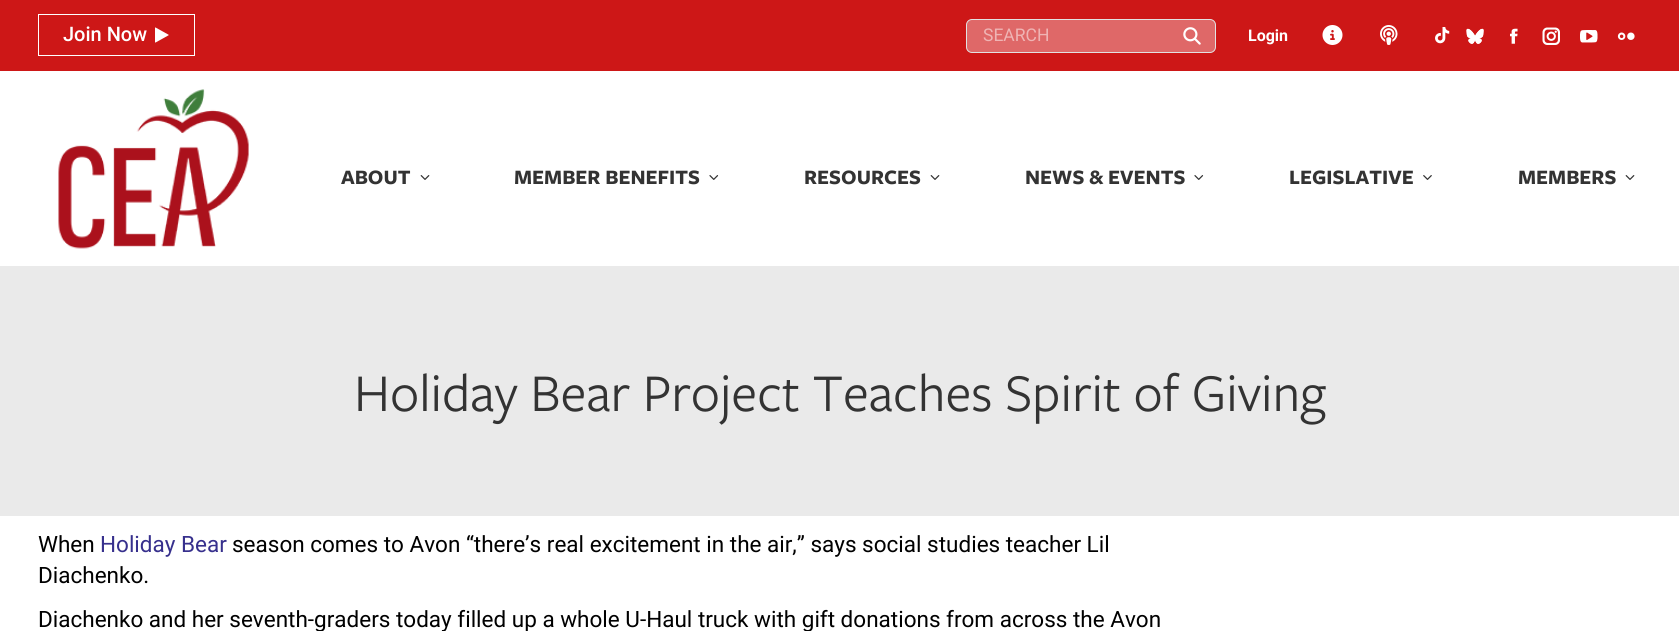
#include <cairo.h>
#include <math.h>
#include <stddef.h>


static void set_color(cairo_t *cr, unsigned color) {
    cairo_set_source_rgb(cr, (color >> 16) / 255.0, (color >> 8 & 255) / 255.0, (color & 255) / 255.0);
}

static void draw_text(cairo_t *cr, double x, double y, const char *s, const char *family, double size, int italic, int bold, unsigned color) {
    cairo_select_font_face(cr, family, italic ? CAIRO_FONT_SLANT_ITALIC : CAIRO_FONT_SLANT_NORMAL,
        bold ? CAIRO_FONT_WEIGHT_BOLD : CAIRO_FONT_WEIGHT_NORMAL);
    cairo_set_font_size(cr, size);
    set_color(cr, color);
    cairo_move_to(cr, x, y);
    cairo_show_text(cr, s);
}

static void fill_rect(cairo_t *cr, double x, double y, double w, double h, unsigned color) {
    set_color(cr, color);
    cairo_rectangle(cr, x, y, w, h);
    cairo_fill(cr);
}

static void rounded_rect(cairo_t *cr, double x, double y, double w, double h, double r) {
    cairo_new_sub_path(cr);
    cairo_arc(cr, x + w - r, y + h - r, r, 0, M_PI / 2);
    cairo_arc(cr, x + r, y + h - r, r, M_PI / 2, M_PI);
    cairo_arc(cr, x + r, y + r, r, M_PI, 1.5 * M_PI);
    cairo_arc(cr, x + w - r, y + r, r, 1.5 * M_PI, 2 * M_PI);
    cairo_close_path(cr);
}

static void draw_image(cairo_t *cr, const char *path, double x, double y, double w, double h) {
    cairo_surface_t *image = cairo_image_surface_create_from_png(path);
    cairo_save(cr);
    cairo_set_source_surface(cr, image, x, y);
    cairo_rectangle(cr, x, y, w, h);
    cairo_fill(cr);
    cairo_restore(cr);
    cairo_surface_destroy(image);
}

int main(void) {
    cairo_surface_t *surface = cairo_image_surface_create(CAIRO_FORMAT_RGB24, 1679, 631);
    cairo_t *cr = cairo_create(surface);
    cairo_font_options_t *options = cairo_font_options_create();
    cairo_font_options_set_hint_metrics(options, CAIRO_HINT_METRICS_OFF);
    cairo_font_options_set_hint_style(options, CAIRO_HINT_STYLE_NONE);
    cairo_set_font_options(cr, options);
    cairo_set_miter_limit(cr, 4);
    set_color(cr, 0xFFFFFF);
    cairo_paint(cr);
    fill_rect(cr, 0, 0, 1679, 71, 0xCD1717);
    cairo_rectangle(cr, 38.5, 14.5, 156, 41);
    set_color(cr, 0xFFFFFF);
    cairo_set_line_width(cr, 1);
    cairo_stroke(cr);
    draw_text(cr, 63, 41, "Join Now", "Roboto Medium", 20, 0, 0, 0xFFFFFF);
    draw_image(cr, "assets/img1.png", 155, 27, 14, 16);
    set_color(cr, 0xDF6868);
    rounded_rect(cr, 966.5, 19.5, 249, 33, 5.5);
    cairo_fill_preserve(cr);
    set_color(cr, 0xE2E2E2);
    cairo_stroke(cr);
    draw_text(cr, 983, 41, "SEARCH", "Roboto", 17.5, 0, 0, 0xEFB4B4);
    draw_image(cr, "assets/img2.png", 1183, 27, 18, 18);
    draw_text(cr, 1248, 41, "Login", "Roboto", 16, 0, 1, 0xFFFFFF);
    draw_image(cr, "assets/img3.png", 1322, 25, 21, 20);
    draw_image(cr, "assets/img4.png", 1380, 25, 18, 20);
    draw_image(cr, "assets/img5.png", 1435, 27, 15, 17);
    draw_image(cr, "assets/img6.png", 1466, 28, 18, 16);
    draw_image(cr, "assets/img7.png", 1510, 28, 8, 16);
    draw_image(cr, "assets/img8.png", 1542, 27, 18, 18);
    draw_image(cr, "assets/img9.png", 1580, 30, 18, 13);
    draw_image(cr, "assets/img10.png", 1617, 32, 18, 8);
    draw_image(cr, "assets/img11.png", 58, 89, 191, 160);
    draw_text(cr, 341, 184, "ABOUT", "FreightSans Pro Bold", 21.25, 0, 1, 0x333333);
    draw_image(cr, "assets/img12.png", 420, 175, 10, 5);
    draw_text(cr, 514, 184, "MEMBER BENEFITS", "FreightSans Pro Bold", 21.25, 0, 1, 0x333333);
    draw_image(cr, "assets/img13.png", 709, 175, 10, 5);
    draw_text(cr, 804, 184, "RESOURCES", "FreightSans Pro Bold", 21.25, 0, 1, 0x333333);
    draw_image(cr, "assets/img12.png", 930, 175, 10, 5);
    draw_text(cr, 1025, 184, "NEWS & EVENTS", "FreightSans Pro Bold", 21.25, 0, 1, 0x333333);
    draw_image(cr, "assets/img13.png", 1194, 175, 10, 5);
    draw_text(cr, 1289, 184, "LEGISLATIVE", "FreightSans Pro Bold", 21.25, 0, 1, 0x333333);
    draw_image(cr, "assets/img14.png", 1423, 175, 9, 5);
    draw_text(cr, 1518, 184, "MEMBERS", "FreightSans Pro Bold", 21.25, 0, 1, 0x333333);
    draw_image(cr, "assets/img12.png", 1625, 175, 10, 5);
    fill_rect(cr, 0, 266, 1679, 250, 0xEAEAEA);
    draw_text(cr, 354, 411, "Holiday Bear Project Teaches Spirit of Giving", "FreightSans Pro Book", 55, 0, 0, 0x333333);
    draw_text(cr, 38, 552, "When", "Roboto", 22.5, 0, 0, 0x000000);
    draw_text(cr, 100, 552, "Holiday Bear", "Roboto", 22.5, 0, 0, 0x37308D);
    draw_text(cr, 232, 552, "season comes to Avon “there’s real excitement in the air,” says social studies teacher Lil", "Roboto", 22.5, 0, 0, 0x000000);
    draw_text(cr, 38, 583, "Diachenko.", "Roboto", 22.5, 0, 0, 0x000000);
    draw_text(cr, 38, 627, "Diachenko and her seventh-graders today filled up a whole U-Haul truck with gift donations from across the Avon", "Roboto", 22.5, 0, 0, 0x000000);
    cairo_surface_write_to_png(surface, "output.png");
    cairo_font_options_destroy(options);
    cairo_destroy(cr);
    cairo_surface_destroy(surface);
    return 0;
}
